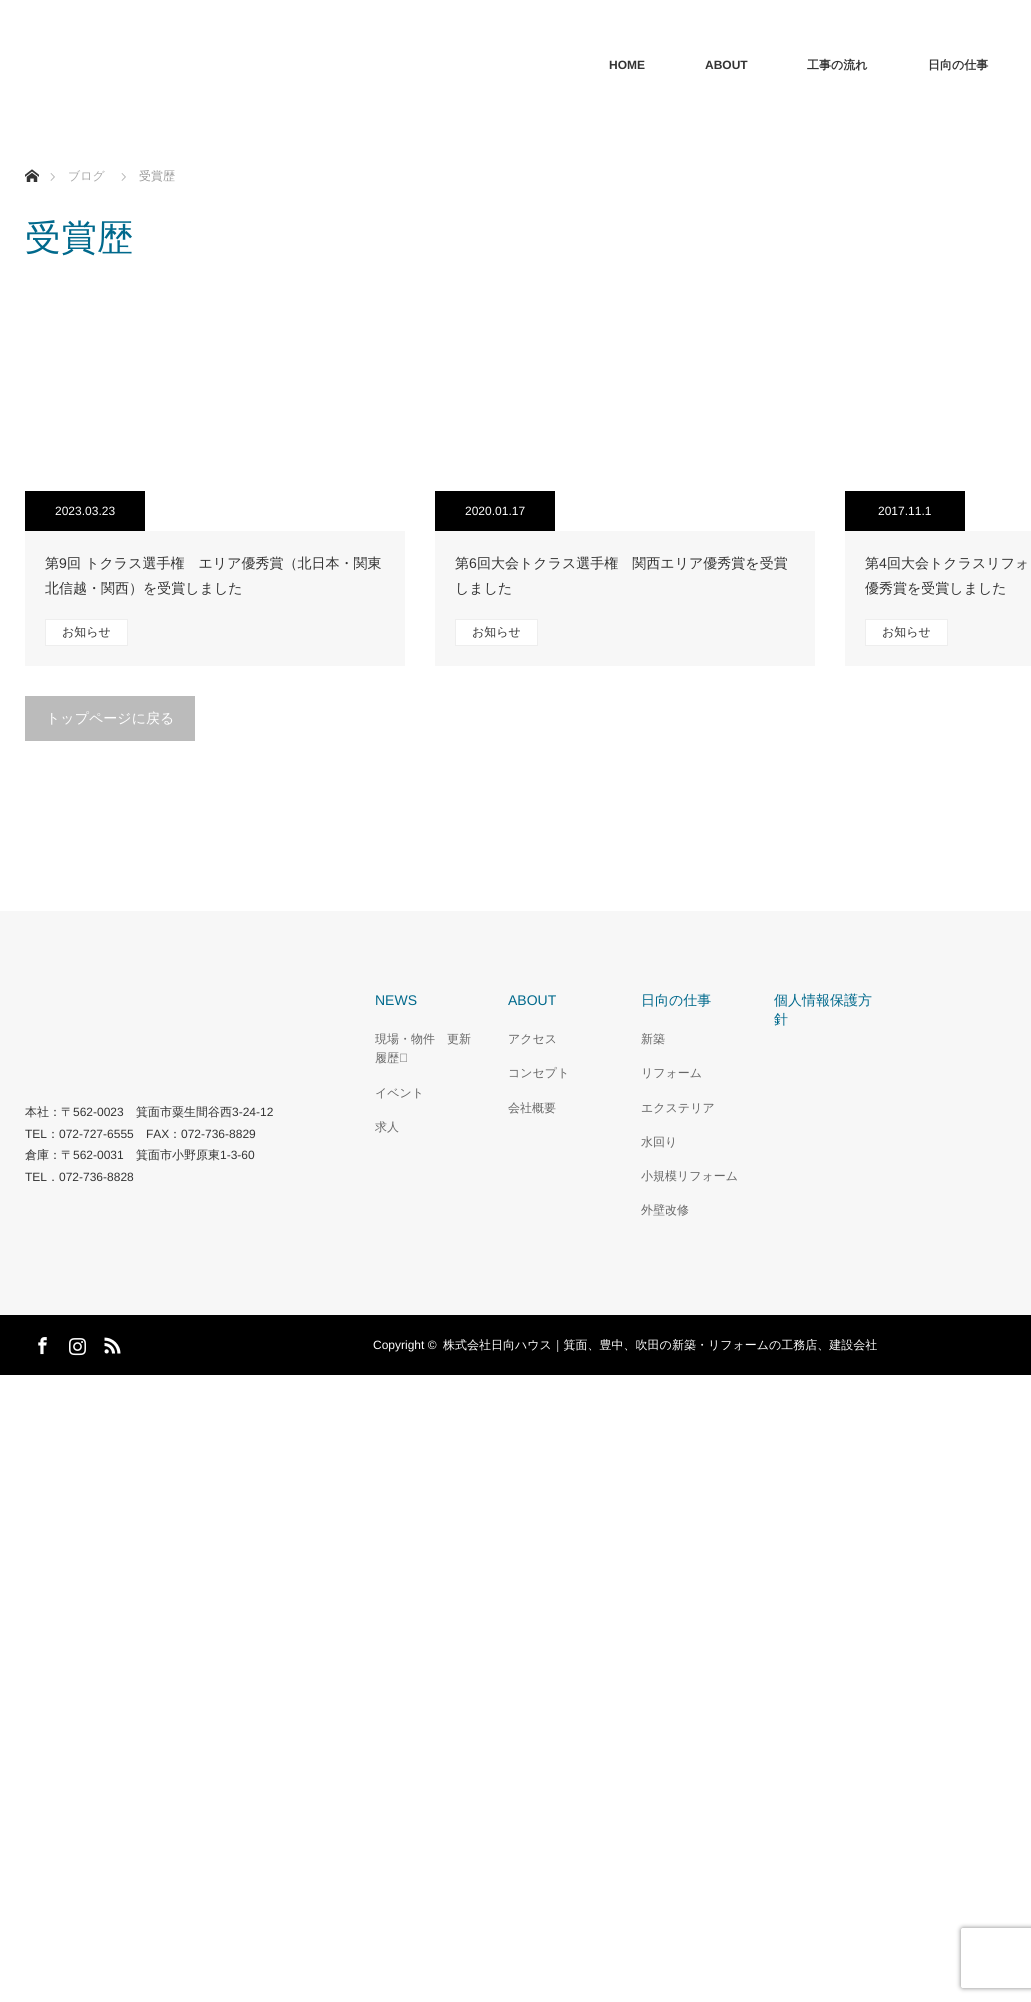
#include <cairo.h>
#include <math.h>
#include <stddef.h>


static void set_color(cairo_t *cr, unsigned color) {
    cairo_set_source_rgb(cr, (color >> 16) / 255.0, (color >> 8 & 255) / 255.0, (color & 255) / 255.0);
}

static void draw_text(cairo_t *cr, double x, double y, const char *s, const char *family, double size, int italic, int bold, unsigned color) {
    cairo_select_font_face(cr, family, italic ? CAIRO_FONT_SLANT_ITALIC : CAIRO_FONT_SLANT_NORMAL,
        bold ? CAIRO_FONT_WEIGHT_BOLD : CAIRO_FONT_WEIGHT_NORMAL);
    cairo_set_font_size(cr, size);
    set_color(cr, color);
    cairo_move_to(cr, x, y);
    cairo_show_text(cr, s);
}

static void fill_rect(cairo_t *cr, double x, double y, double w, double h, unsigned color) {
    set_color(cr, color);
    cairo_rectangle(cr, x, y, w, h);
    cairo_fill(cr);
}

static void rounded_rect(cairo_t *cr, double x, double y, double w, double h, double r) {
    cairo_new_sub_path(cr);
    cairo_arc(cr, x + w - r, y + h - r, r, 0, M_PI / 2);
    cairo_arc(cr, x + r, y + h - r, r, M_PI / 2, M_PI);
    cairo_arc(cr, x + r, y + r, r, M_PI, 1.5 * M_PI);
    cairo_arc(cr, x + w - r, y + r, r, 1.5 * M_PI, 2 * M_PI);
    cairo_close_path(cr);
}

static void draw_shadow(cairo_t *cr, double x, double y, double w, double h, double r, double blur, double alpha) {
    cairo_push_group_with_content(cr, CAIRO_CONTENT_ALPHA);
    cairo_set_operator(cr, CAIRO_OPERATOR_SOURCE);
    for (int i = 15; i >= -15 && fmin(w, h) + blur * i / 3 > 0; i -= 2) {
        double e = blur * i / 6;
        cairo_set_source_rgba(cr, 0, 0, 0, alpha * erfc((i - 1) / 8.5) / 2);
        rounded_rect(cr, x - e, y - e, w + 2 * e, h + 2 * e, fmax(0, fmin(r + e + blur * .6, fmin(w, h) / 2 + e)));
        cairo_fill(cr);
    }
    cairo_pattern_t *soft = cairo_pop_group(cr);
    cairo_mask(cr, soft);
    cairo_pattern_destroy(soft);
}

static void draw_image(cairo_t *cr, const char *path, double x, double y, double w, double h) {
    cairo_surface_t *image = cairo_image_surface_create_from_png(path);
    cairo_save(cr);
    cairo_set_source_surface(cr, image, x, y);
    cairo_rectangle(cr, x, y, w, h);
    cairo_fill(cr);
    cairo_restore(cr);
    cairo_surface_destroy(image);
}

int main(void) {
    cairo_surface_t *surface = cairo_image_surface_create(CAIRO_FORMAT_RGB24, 1031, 2002);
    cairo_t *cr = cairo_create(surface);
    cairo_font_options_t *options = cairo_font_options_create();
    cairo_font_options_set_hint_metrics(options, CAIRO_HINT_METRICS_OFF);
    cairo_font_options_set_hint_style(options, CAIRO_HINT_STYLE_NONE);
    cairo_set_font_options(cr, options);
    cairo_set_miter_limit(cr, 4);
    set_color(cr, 0xFFFFFF);
    cairo_paint(cr);
    draw_text(cr, 609, 69, "HOME", "Liberation Sans", 12, 0, 1, 0x333333);
    draw_text(cr, 705, 69, "ABOUT", "Liberation Sans", 12, 0, 1, 0x333333);
    draw_text(cr, 807, 69, "工事の流れ", "WenQuanYi Zen Hei", 12, 0, 1, 0x333333);
    draw_text(cr, 928, 69, "日向の仕事", "WenQuanYi Zen Hei", 12, 0, 1, 0x333333);
    draw_image(cr, "assets/img1.png", 25, 169, 14, 13);
    draw_image(cr, "assets/img2.png", 50, 173, 5, 8);
    draw_text(cr, 68, 180, "ブログ", "WenQuanYi Zen Hei Medium", 12, 0, 0, 0xAAAAAA);
    draw_image(cr, "assets/img2.png", 121, 173, 5, 8);
    draw_text(cr, 139, 180, "受賞歴", "WenQuanYi Zen Hei Medium", 12, 0, 0, 0x999999);
    draw_text(cr, 25, 250, "受賞歴", "WenQuanYi Zen Hei Medium", 36, 0, 0, 0x00698C);
    fill_rect(cr, 25, 491, 120, 40, 0x000000);
    draw_text(cr, 55, 515, "2023.03.23", "Liberation Sans", 12, 0, 0, 0xFFFFFF);
    fill_rect(cr, 25, 531, 380, 135, 0xF7F7F7);
    draw_text(cr, 45, 568, "第", "WenQuanYi Zen Hei Medium", 14, 0, 0, 0x333333);
    draw_text(cr, 59, 568, "9", "Liberation Sans", 14, 0, 0, 0x333333);
    draw_text(cr, 67, 568, "回 トクラス選手権　エリア優秀賞（北日本・関東", "WenQuanYi Zen Hei Medium", 14, 0, 0, 0x333333);
    draw_text(cr, 45, 593, "北信越・関西）を受賞しました", "WenQuanYi Zen Hei Medium", 14, 0, 0, 0x333333);
    set_color(cr, 0xFFFFFF);
    cairo_rectangle(cr, 45.5, 619.5, 82, 26);
    cairo_fill_preserve(cr);
    set_color(cr, 0xEEEEEE);
    cairo_set_line_width(cr, 1);
    cairo_stroke(cr);
    draw_text(cr, 62, 636, "お知らせ", "WenQuanYi Zen Hei Medium", 12, 0, 0, 0x333333);
    fill_rect(cr, 435, 491, 120, 40, 0x000000);
    draw_text(cr, 465, 515, "2020.01.17", "Liberation Sans", 12, 0, 0, 0xFFFFFF);
    fill_rect(cr, 435, 531, 380, 135, 0xF7F7F7);
    draw_text(cr, 455, 568, "第", "WenQuanYi Zen Hei Medium", 14, 0, 0, 0x333333);
    draw_text(cr, 469, 568, "6", "Liberation Sans", 14, 0, 0, 0x333333);
    draw_text(cr, 477, 568, "回大会トクラス選手権　関西エリア優秀賞を受賞", "WenQuanYi Zen Hei Medium", 14, 0, 0, 0x333333);
    draw_text(cr, 455, 593, "しました", "WenQuanYi Zen Hei Medium", 14, 0, 0, 0x333333);
    set_color(cr, 0xFFFFFF);
    cairo_rectangle(cr, 455.5, 619.5, 82, 26);
    cairo_fill_preserve(cr);
    set_color(cr, 0xEEEEEE);
    cairo_stroke(cr);
    draw_text(cr, 472, 636, "お知らせ", "WenQuanYi Zen Hei Medium", 12, 0, 0, 0x333333);
    fill_rect(cr, 845, 491, 120, 40, 0x000000);
    draw_text(cr, 878, 515, "2017.11.1", "Liberation Sans", 12, 0, 0, 0xFFFFFF);
    fill_rect(cr, 845, 531, 186, 135, 0xF7F7F7);
    draw_text(cr, 865, 568, "第", "WenQuanYi Zen Hei Medium", 14, 0, 0, 0x333333);
    draw_text(cr, 879, 568, "4", "Liberation Sans", 14, 0, 0, 0x333333);
    draw_text(cr, 887, 568, "回大会トクラスリフォ", "WenQuanYi Zen Hei Medium", 14, 0, 0, 0x333333);
    draw_text(cr, 865, 593, "優秀賞を受賞しました", "WenQuanYi Zen Hei Medium", 14, 0, 0, 0x333333);
    set_color(cr, 0xFFFFFF);
    cairo_rectangle(cr, 865.5, 619.5, 82, 26);
    cairo_fill_preserve(cr);
    set_color(cr, 0xEEEEEE);
    cairo_stroke(cr);
    draw_text(cr, 882, 636, "お知らせ", "WenQuanYi Zen Hei Medium", 12, 0, 0, 0x333333);
    fill_rect(cr, 25, 696, 170, 45, 0xBBBBBB);
    draw_text(cr, 46, 723, "トップページに戻る", "WenQuanYi Zen Hei Medium", 14, 0, 0, 0xFFFFFF);
    fill_rect(cr, 0, 911, 1031, 404, 0xF7F7F7);
    draw_text(cr, 25, 1116, "本社：〒", "WenQuanYi Zen Hei Medium", 12, 0, 0, 0x333333);
    draw_text(cr, 73, 1116, "562-0023", "Liberation Sans", 12, 0, 0, 0x333333);
    draw_text(cr, 136, 1116, "箕面市粟生間谷西", "WenQuanYi Zen Hei Medium", 12, 0, 0, 0x333333);
    draw_text(cr, 232, 1116, "3-24-12", "Liberation Sans", 12, 0, 0, 0x333333);
    draw_text(cr, 25, 1138, "TEL", "Liberation Sans", 12, 0, 0, 0x333333);
    draw_text(cr, 47, 1138, "：", "WenQuanYi Zen Hei Medium", 12, 0, 0, 0x333333);
    draw_text(cr, 59, 1138, "072-727-6555", "Liberation Sans", 12, 0, 0, 0x333333);
    draw_text(cr, 146, 1138, "FAX", "Liberation Sans", 12, 0, 0, 0x333333);
    draw_text(cr, 169, 1138, "：", "WenQuanYi Zen Hei Medium", 12, 0, 0, 0x333333);
    draw_text(cr, 181, 1138, "072-736-8829", "Liberation Sans", 12, 0, 0, 0x333333);
    draw_text(cr, 25, 1159, "倉庫：〒", "WenQuanYi Zen Hei Medium", 12, 0, 0, 0x333333);
    draw_text(cr, 73, 1159, "562-0031", "Liberation Sans", 12, 0, 0, 0x333333);
    draw_text(cr, 136, 1159, "箕面市小野原東", "WenQuanYi Zen Hei Medium", 12, 0, 0, 0x333333);
    draw_text(cr, 220, 1159, "1-3-60", "Liberation Sans", 12, 0, 0, 0x333333);
    draw_text(cr, 25, 1181, "TEL", "Liberation Sans", 12, 0, 0, 0x333333);
    draw_text(cr, 47, 1181, "．", "WenQuanYi Zen Hei Medium", 12, 0, 0, 0x333333);
    draw_text(cr, 59, 1181, "072-736-8828", "Liberation Sans", 12, 0, 0, 0x333333);
    draw_text(cr, 375, 1005, "NEWS", "Liberation Sans", 14, 0, 0, 0x00698C);
    draw_text(cr, 375, 1043, "現場・物件　更新", "WenQuanYi Zen Hei Medium", 12, 0, 0, 0x666666);
    draw_text(cr, 375, 1062, "履歴", "WenQuanYi Zen Hei Medium", 12, 0, 0, 0x666666);
    draw_image(cr, "assets/img3.png", 400, 1053, 7, 9);
    draw_text(cr, 375, 1097, "イベント", "WenQuanYi Zen Hei Medium", 12, 0, 0, 0x666666);
    draw_text(cr, 375, 1131, "求人", "WenQuanYi Zen Hei Medium", 12, 0, 0, 0x666666);
    draw_text(cr, 508, 1005, "ABOUT", "Liberation Sans", 14, 0, 0, 0x00698C);
    draw_text(cr, 508, 1043, "アクセス", "WenQuanYi Zen Hei Medium", 12, 0, 0, 0x666666);
    draw_text(cr, 508, 1077, "コンセプト", "WenQuanYi Zen Hei Medium", 12, 0, 0, 0x666666);
    draw_text(cr, 508, 1112, "会社概要", "WenQuanYi Zen Hei Medium", 12, 0, 0, 0x666666);
    draw_text(cr, 641, 1005, "日向の仕事", "WenQuanYi Zen Hei Medium", 14, 0, 0, 0x00698C);
    draw_text(cr, 641, 1043, "新築", "WenQuanYi Zen Hei Medium", 12, 0, 0, 0x666666);
    draw_text(cr, 641, 1077, "リフォーム", "WenQuanYi Zen Hei Medium", 12, 0, 0, 0x666666);
    draw_text(cr, 641, 1112, "エクステリア", "WenQuanYi Zen Hei Medium", 12, 0, 0, 0x666666);
    draw_text(cr, 641, 1146, "水回り", "WenQuanYi Zen Hei Medium", 12, 0, 0, 0x666666);
    draw_text(cr, 641, 1180, "小規模リフォーム", "WenQuanYi Zen Hei Medium", 12, 0, 0, 0x666666);
    draw_text(cr, 641, 1214, "外壁改修", "WenQuanYi Zen Hei Medium", 12, 0, 0, 0x666666);
    draw_text(cr, 774, 1005, "個人情報保護方", "WenQuanYi Zen Hei Medium", 14, 0, 0, 0x00698C);
    draw_text(cr, 774, 1024, "針", "WenQuanYi Zen Hei Medium", 14, 0, 0, 0x00698C);
    fill_rect(cr, 0, 1315, 1031, 60, 0x000000);
    draw_image(cr, "assets/img4.png", 38, 1337, 9, 18);
    draw_image(cr, "assets/img5.png", 69, 1338, 17, 18);
    draw_image(cr, "assets/img6.png", 104, 1337, 17, 17);
    draw_text(cr, 373, 1349, "Copyright ©", "Liberation Sans", 12, 0, 0, 0xFFFFFF);
    draw_text(cr, 443, 1349, "株式会社日向ハウス｜箕面、豊中、吹田の新築・リフォームの工務店、建設会社", "WenQuanYi Zen Hei Medium", 12, 0, 0, 0xFFFFFF);
    cairo_save(cr);
    cairo_set_fill_rule(cr, CAIRO_FILL_RULE_EVEN_ODD);
    cairo_new_path(cr);
    cairo_move_to(cr, 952, 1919);
    cairo_line_to(cr, 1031, 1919);
    cairo_line_to(cr, 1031, 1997);
    cairo_line_to(cr, 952, 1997);
    cairo_close_path(cr);
    cairo_move_to(cr, 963, 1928);
    cairo_line_to(cr, 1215, 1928);
    cairo_curve_to(cr, 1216, 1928, 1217, 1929, 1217, 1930);
    cairo_line_to(cr, 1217, 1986);
    cairo_curve_to(cr, 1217, 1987, 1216, 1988, 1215, 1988);
    cairo_line_to(cr, 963, 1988);
    cairo_curve_to(cr, 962, 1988, 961, 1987, 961, 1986);
    cairo_line_to(cr, 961, 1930);
    cairo_curve_to(cr, 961, 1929, 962, 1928, 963, 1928);
    cairo_close_path(cr);
    cairo_clip(cr);
    set_color(cr, 0x808080);
    draw_shadow(cr, 961, 1928, 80, 60, 2, 2.5, 1);
    cairo_restore(cr);
    cairo_surface_write_to_png(surface, "output.png");
    cairo_font_options_destroy(options);
    cairo_destroy(cr);
    cairo_surface_destroy(surface);
    return 0;
}
